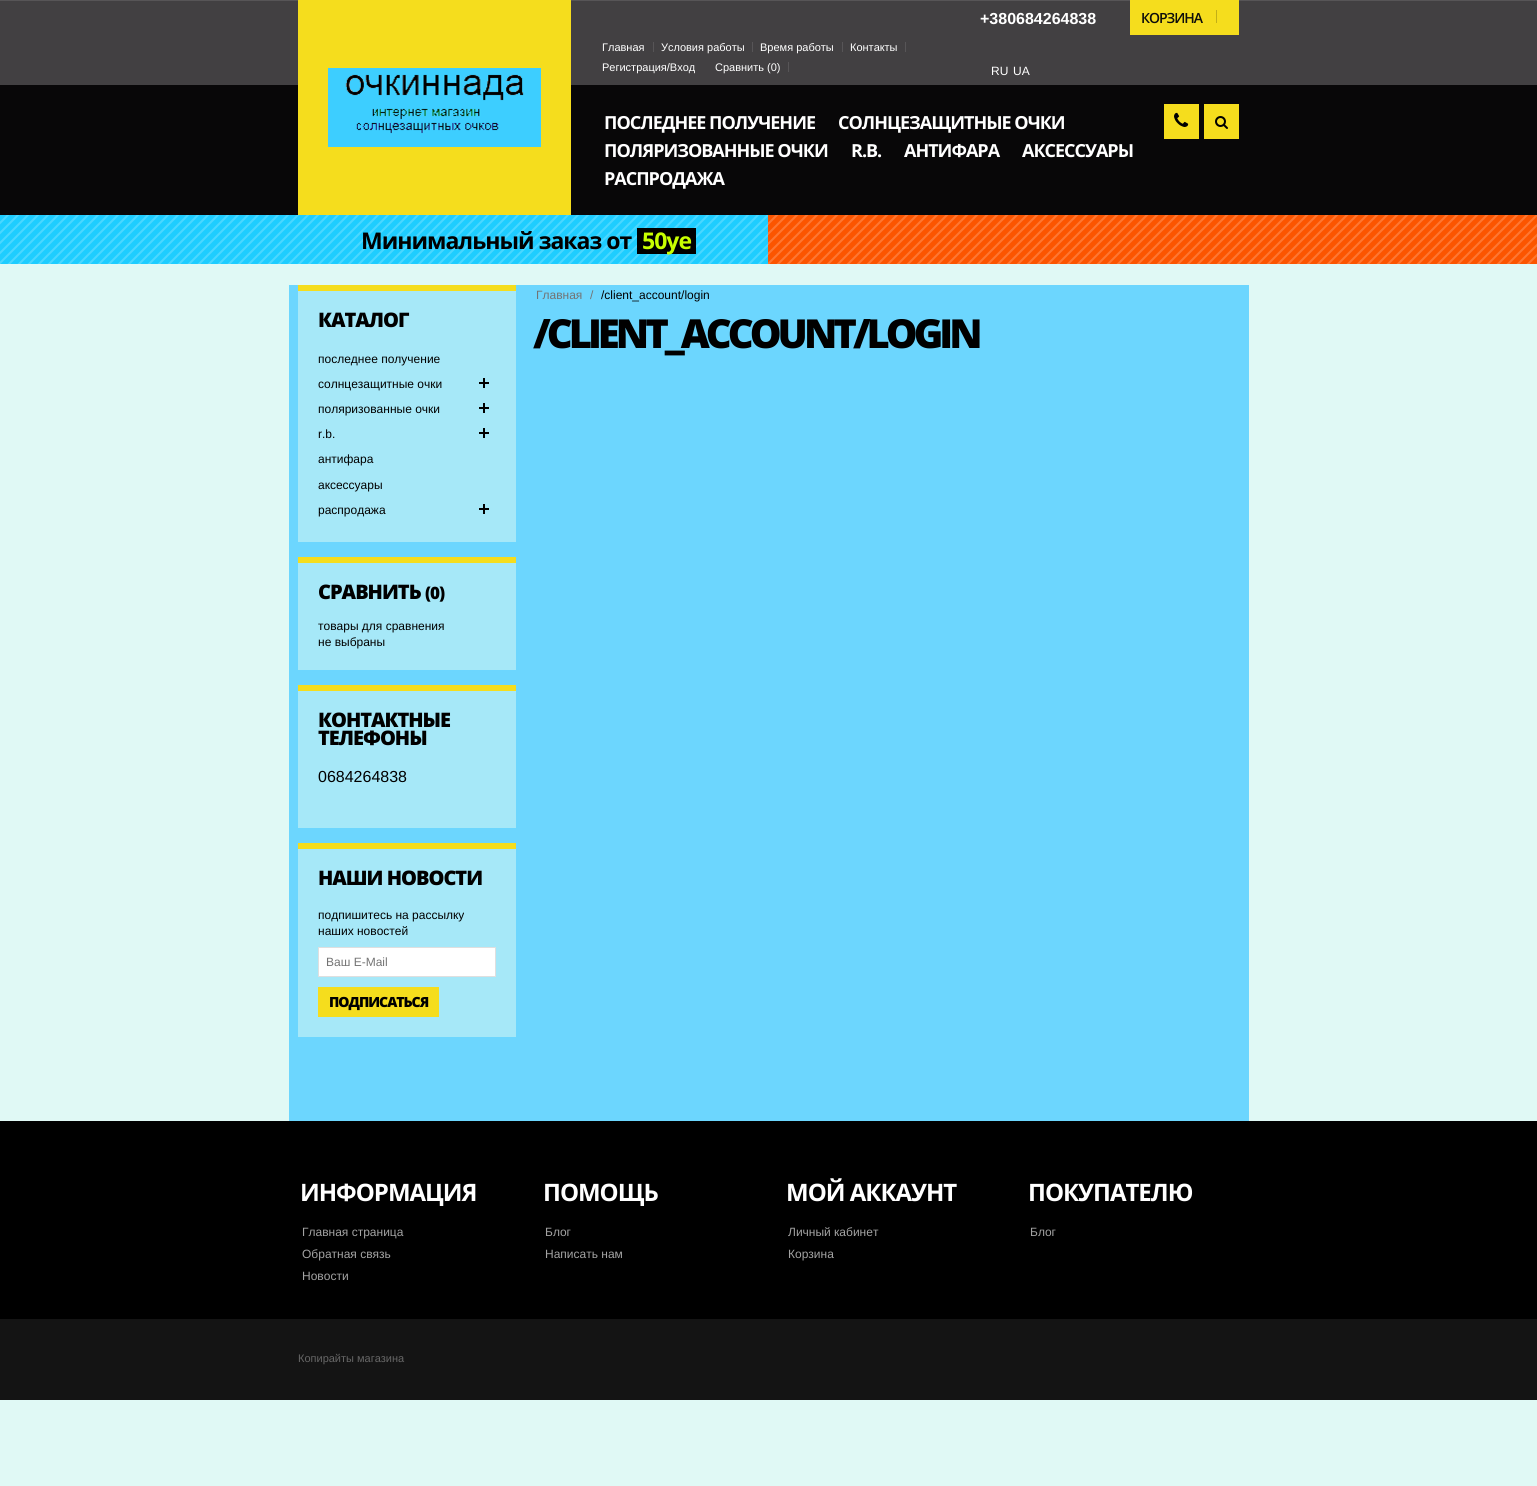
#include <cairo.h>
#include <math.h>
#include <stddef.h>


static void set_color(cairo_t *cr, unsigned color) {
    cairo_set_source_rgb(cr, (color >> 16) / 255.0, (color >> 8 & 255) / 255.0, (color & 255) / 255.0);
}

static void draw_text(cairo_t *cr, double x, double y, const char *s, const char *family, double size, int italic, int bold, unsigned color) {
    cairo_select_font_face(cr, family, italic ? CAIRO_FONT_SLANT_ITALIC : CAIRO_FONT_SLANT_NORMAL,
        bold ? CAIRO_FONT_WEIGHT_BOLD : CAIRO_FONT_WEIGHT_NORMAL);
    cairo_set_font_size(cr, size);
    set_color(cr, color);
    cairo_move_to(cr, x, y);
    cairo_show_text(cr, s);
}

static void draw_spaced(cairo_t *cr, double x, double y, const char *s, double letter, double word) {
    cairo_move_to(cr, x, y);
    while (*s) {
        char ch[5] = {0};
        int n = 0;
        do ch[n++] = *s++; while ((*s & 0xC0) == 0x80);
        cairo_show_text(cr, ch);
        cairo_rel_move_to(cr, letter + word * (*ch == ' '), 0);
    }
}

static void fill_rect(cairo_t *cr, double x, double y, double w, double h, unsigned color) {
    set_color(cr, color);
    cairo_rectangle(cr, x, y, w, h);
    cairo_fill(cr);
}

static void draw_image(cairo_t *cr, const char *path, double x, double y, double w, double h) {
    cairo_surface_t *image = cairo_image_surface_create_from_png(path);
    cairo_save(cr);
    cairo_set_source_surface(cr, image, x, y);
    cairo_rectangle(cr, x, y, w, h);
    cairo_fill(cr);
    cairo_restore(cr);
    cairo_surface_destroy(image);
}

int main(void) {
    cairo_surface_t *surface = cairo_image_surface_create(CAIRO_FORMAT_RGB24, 1537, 1486);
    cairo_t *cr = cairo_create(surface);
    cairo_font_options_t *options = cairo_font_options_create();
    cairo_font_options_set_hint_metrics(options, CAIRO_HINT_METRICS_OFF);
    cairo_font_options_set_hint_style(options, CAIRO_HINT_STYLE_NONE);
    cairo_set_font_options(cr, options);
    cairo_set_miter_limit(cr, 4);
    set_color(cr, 0xE0F9F5);
    cairo_paint(cr);
    fill_rect(cr, 0, 85, 1537, 130, 0x080708);
    fill_rect(cr, 0, 1, 1537, 84, 0x424042);
    fill_rect(cr, 0, 0, 1537, 1, 0x575557);
    fill_rect(cr, 298, 0, 273, 215, 0xF5DD1D);
    draw_image(cr, "assets/img1.png", 328, 68, 213, 79);
    draw_text(cr, 980, 24, "+380684264838", "Liberation Sans", 16, 0, 1, 0xFFFFFF);
    fill_rect(cr, 1130, 0, 109, 35, 0xF5DD1D);
    cairo_select_font_face(cr, "Open Sans SemiBold", CAIRO_FONT_SLANT_NORMAL, CAIRO_FONT_WEIGHT_NORMAL);
    cairo_set_font_size(cr, 14);
    set_color(cr, 0x0D0D0C);
    draw_spaced(cr, 1141, 23, "КОРЗИНА", -1, 0);
    fill_rect(cr, 1216, 10, 1, 13, 0xC2AF17);
    draw_text(cr, 602, 51, "Главная", "Liberation Sans", 11, 0, 0, 0xFFFFFF);
    fill_rect(cr, 653, 42, 1, 10, 0x575557);
    draw_text(cr, 661, 51, "Условия работы", "Liberation Sans", 11, 0, 0, 0xFFFFFF);
    fill_rect(cr, 752, 42, 1, 10, 0x575557);
    draw_text(cr, 760, 51, "Время работы", "Liberation Sans", 11, 0, 0, 0xFFFFFF);
    fill_rect(cr, 842, 42, 1, 10, 0x575557);
    draw_text(cr, 850, 51, "Контакты", "Liberation Sans", 11, 0, 0, 0xFFFFFF);
    fill_rect(cr, 905, 42, 1, 10, 0x575557);
    draw_text(cr, 602, 71, "Регистрация/Вход", "Liberation Sans", 11, 0, 0, 0xFFFFFF);
    draw_text(cr, 715, 71, "Сравнить (0)", "Liberation Sans", 11, 0, 0, 0xFFFFFF);
    fill_rect(cr, 788, 62, 1, 10, 0x575557);
    draw_text(cr, 991, 75, "RU", "Liberation Sans", 12, 0, 0, 0xFFFFFF);
    draw_text(cr, 1013, 75, "UA", "Liberation Sans", 12, 0, 0, 0xFFFFFF);
    cairo_select_font_face(cr, "Open Sans", CAIRO_FONT_SLANT_NORMAL, CAIRO_FONT_WEIGHT_BOLD);
    cairo_set_font_size(cr, 18);
    draw_spaced(cr, 604, 129, "ПОСЛЕДНЕЕ ПОЛУЧЕНИЕ", -1, 0);
    draw_spaced(cr, 838, 129, "СОЛНЦЕЗАЩИТНЫЕ ОЧКИ", -1, 0);
    draw_spaced(cr, 604, 157, "ПОЛЯРИЗОВАННЫЕ ОЧКИ", -1, 0);
    draw_spaced(cr, 851, 157, "R.B.", -1, 0);
    draw_spaced(cr, 904, 157, "АНТИФАРА", -1, 0);
    draw_spaced(cr, 1022, 157, "АКСЕССУАРЫ", -1, 0);
    draw_spaced(cr, 604, 185, "РАСПРОДАЖА", -1, 0);
    fill_rect(cr, 1164, 104, 35, 35, 0xF5DD1D);
    draw_image(cr, "assets/img2.png", 1174, 112, 15, 15);
    fill_rect(cr, 1204, 104, 35, 35, 0xF5DD1D);
    draw_image(cr, "assets/img3.png", 1215, 116, 13, 13);
    fill_rect(cr, 0, 215, 768, 49, 0x1ECDFF);
    draw_image(cr, "assets/img4.png", 0, 215, 768, 49);
    cairo_set_font_size(cr, 23);
    set_color(cr, 0x000000);
    draw_spaced(cr, 361, 249, "Минимальный заказ от", -1, 0);
    fill_rect(cr, 637, 228, 59, 26, 0x000000);
    set_color(cr, 0xC8FF00);
    draw_spaced(cr, 642, 249, "50уе", -1, 0);
    fill_rect(cr, 768, 215, 769, 49, 0xFC5500);
    draw_image(cr, "assets/img5.png", 768, 215, 769, 49);
    fill_rect(cr, 289, 285, 960, 836, 0x6CD6FE);
    fill_rect(cr, 298, 291, 218, 251, 0xA6E8F8);
    fill_rect(cr, 298, 285, 218, 6, 0xF5DD1D);
    cairo_select_font_face(cr, "Open Sans ExtraBold", CAIRO_FONT_SLANT_NORMAL, CAIRO_FONT_WEIGHT_NORMAL);
    cairo_set_font_size(cr, 20);
    set_color(cr, 0x000000);
    draw_spaced(cr, 318, 327, "КАТАЛОГ", -1, 0);
    draw_text(cr, 318, 363, "последнее получение", "Liberation Sans", 12, 0, 0, 0x000000);
    draw_text(cr, 318, 388, "солнцезащитные очки", "Liberation Sans", 12, 0, 0, 0x000000);
    draw_image(cr, "assets/img6.png", 479, 378, 10, 10);
    draw_text(cr, 318, 413, "поляризованные очки", "Liberation Sans", 12, 0, 0, 0x000000);
    draw_image(cr, "assets/img6.png", 479, 403, 10, 10);
    draw_text(cr, 318, 438, "r.b.", "Liberation Sans", 12, 0, 0, 0x000000);
    draw_image(cr, "assets/img6.png", 479, 428, 10, 10);
    draw_text(cr, 318, 463, "антифара", "Liberation Sans", 12, 0, 0, 0x000000);
    draw_text(cr, 318, 489, "аксессуары", "Liberation Sans", 12, 0, 0, 0x000000);
    draw_text(cr, 318, 514, "распродажа", "Liberation Sans", 12, 0, 0, 0x000000);
    draw_image(cr, "assets/img6.png", 479, 504, 10, 10);
    fill_rect(cr, 298, 563, 218, 107, 0xA6E8F8);
    fill_rect(cr, 298, 557, 218, 6, 0xF5DD1D);
    cairo_select_font_face(cr, "Open Sans ExtraBold", CAIRO_FONT_SLANT_NORMAL, CAIRO_FONT_WEIGHT_NORMAL);
    cairo_set_font_size(cr, 20);
    set_color(cr, 0x000000);
    draw_spaced(cr, 318, 599, "СРАВНИТЬ", -1, 0);
    cairo_set_font_size(cr, 17);
    draw_spaced(cr, 425, 599, "(0)", -1, 0);
    draw_text(cr, 318, 630, "товары для сравнения", "Liberation Sans", 12, 0, 0, 0x000000);
    draw_text(cr, 318, 646, "не выбраны", "Liberation Sans", 12, 0, 0, 0x000000);
    fill_rect(cr, 298, 691, 218, 137, 0xA6E8F8);
    fill_rect(cr, 298, 685, 218, 6, 0xF5DD1D);
    cairo_select_font_face(cr, "Open Sans ExtraBold", CAIRO_FONT_SLANT_NORMAL, CAIRO_FONT_WEIGHT_NORMAL);
    cairo_set_font_size(cr, 20);
    set_color(cr, 0x000000);
    draw_spaced(cr, 318, 727, "КОНТАКТНЫЕ", -1, 0);
    draw_spaced(cr, 318, 745, "ТЕЛЕФОНЫ", -1, 0);
    draw_text(cr, 318, 782, "0684264838", "Liberation Sans", 16, 0, 0, 0x000000);
    fill_rect(cr, 298, 849, 218, 188, 0xA6E8F8);
    fill_rect(cr, 298, 843, 218, 6, 0xF5DD1D);
    cairo_select_font_face(cr, "Open Sans ExtraBold", CAIRO_FONT_SLANT_NORMAL, CAIRO_FONT_WEIGHT_NORMAL);
    cairo_set_font_size(cr, 20);
    set_color(cr, 0x000000);
    draw_spaced(cr, 318, 885, "НАШИ НОВОСТИ", -1, 0);
    draw_text(cr, 318, 919, "подпишитесь на рассылку", "Liberation Sans", 12, 0, 0, 0x000000);
    draw_text(cr, 318, 935, "наших новостей", "Liberation Sans", 12, 0, 0, 0x000000);
    set_color(cr, 0xFFFFFF);
    cairo_rectangle(cr, 318.5, 947.5, 177, 29);
    cairo_fill_preserve(cr);
    set_color(cr, 0xDFDFDF);
    cairo_set_line_width(cr, 1);
    cairo_stroke(cr);
    draw_text(cr, 326, 966, "Ваш E-Mail", "Liberation Sans", 12, 0, 0, 0x737373);
    fill_rect(cr, 318, 987, 121, 30, 0xF5DD1D);
    cairo_select_font_face(cr, "Open Sans ExtraBold", CAIRO_FONT_SLANT_NORMAL, CAIRO_FONT_WEIGHT_NORMAL);
    cairo_set_font_size(cr, 14);
    set_color(cr, 0x000000);
    draw_spaced(cr, 329, 1007, "ПОДПИСАТЬСЯ", -1, 0);
    draw_text(cr, 536, 299, "Главная", "Liberation Sans", 12, 0, 0, 0x737373);
    draw_text(cr, 590, 299, "/", "Liberation Sans", 12, 0, 0, 0x737373);
    draw_text(cr, 601, 299, "/client_account/login", "Liberation Sans", 12, 0, 0, 0x000000);
    cairo_select_font_face(cr, "Open Sans ExtraBold", CAIRO_FONT_SLANT_NORMAL, CAIRO_FONT_WEIGHT_NORMAL);
    cairo_set_font_size(cr, 40);
    draw_spaced(cr, 533, 348, "/CLIENT_ACCOUNT/LOGIN", -4, 0);
    fill_rect(cr, 0, 1121, 1537, 198, 0x000000);
    cairo_select_font_face(cr, "Open Sans", CAIRO_FONT_SLANT_NORMAL, CAIRO_FONT_WEIGHT_BOLD);
    cairo_set_font_size(cr, 24);
    set_color(cr, 0xFFFFFF);
    draw_spaced(cr, 300, 1201, "ИНФОРМАЦИЯ", -1, 0);
    draw_text(cr, 302, 1236, "Главная страница", "Liberation Sans", 12, 0, 0, 0xA3A3A3);
    draw_text(cr, 302, 1258, "Обратная связь", "Liberation Sans", 12, 0, 0, 0xA3A3A3);
    draw_text(cr, 302, 1280, "Новости", "Liberation Sans", 12, 0, 0, 0xA3A3A3);
    cairo_select_font_face(cr, "Open Sans", CAIRO_FONT_SLANT_NORMAL, CAIRO_FONT_WEIGHT_BOLD);
    cairo_set_font_size(cr, 24);
    set_color(cr, 0xFFFFFF);
    draw_spaced(cr, 543, 1201, "ПОМОЩЬ", -1, 0);
    draw_text(cr, 545, 1236, "Блог", "Liberation Sans", 12, 0, 0, 0xA3A3A3);
    draw_text(cr, 545, 1258, "Написать нам", "Liberation Sans", 12, 0, 0, 0xA3A3A3);
    cairo_select_font_face(cr, "Open Sans", CAIRO_FONT_SLANT_NORMAL, CAIRO_FONT_WEIGHT_BOLD);
    cairo_set_font_size(cr, 24);
    set_color(cr, 0xFFFFFF);
    draw_spaced(cr, 786, 1201, "МОЙ АККАУНТ", -1, 0);
    draw_text(cr, 788, 1236, "Личный кабинет", "Liberation Sans", 12, 0, 0, 0xA3A3A3);
    draw_text(cr, 788, 1258, "Корзина", "Liberation Sans", 12, 0, 0, 0xA3A3A3);
    cairo_select_font_face(cr, "Open Sans", CAIRO_FONT_SLANT_NORMAL, CAIRO_FONT_WEIGHT_BOLD);
    cairo_set_font_size(cr, 24);
    set_color(cr, 0xFFFFFF);
    draw_spaced(cr, 1028, 1201, "ПОКУПАТЕЛЮ", -1, 0);
    draw_text(cr, 1030, 1236, "Блог", "Liberation Sans", 12, 0, 0, 0xA3A3A3);
    fill_rect(cr, 0, 1319, 1537, 81, 0x141414);
    draw_text(cr, 298, 1362, "Копирайты магазина", "Liberation Sans", 11, 0, 0, 0x666666);
    cairo_surface_write_to_png(surface, "output.png");
    cairo_font_options_destroy(options);
    cairo_destroy(cr);
    cairo_surface_destroy(surface);
    return 0;
}
